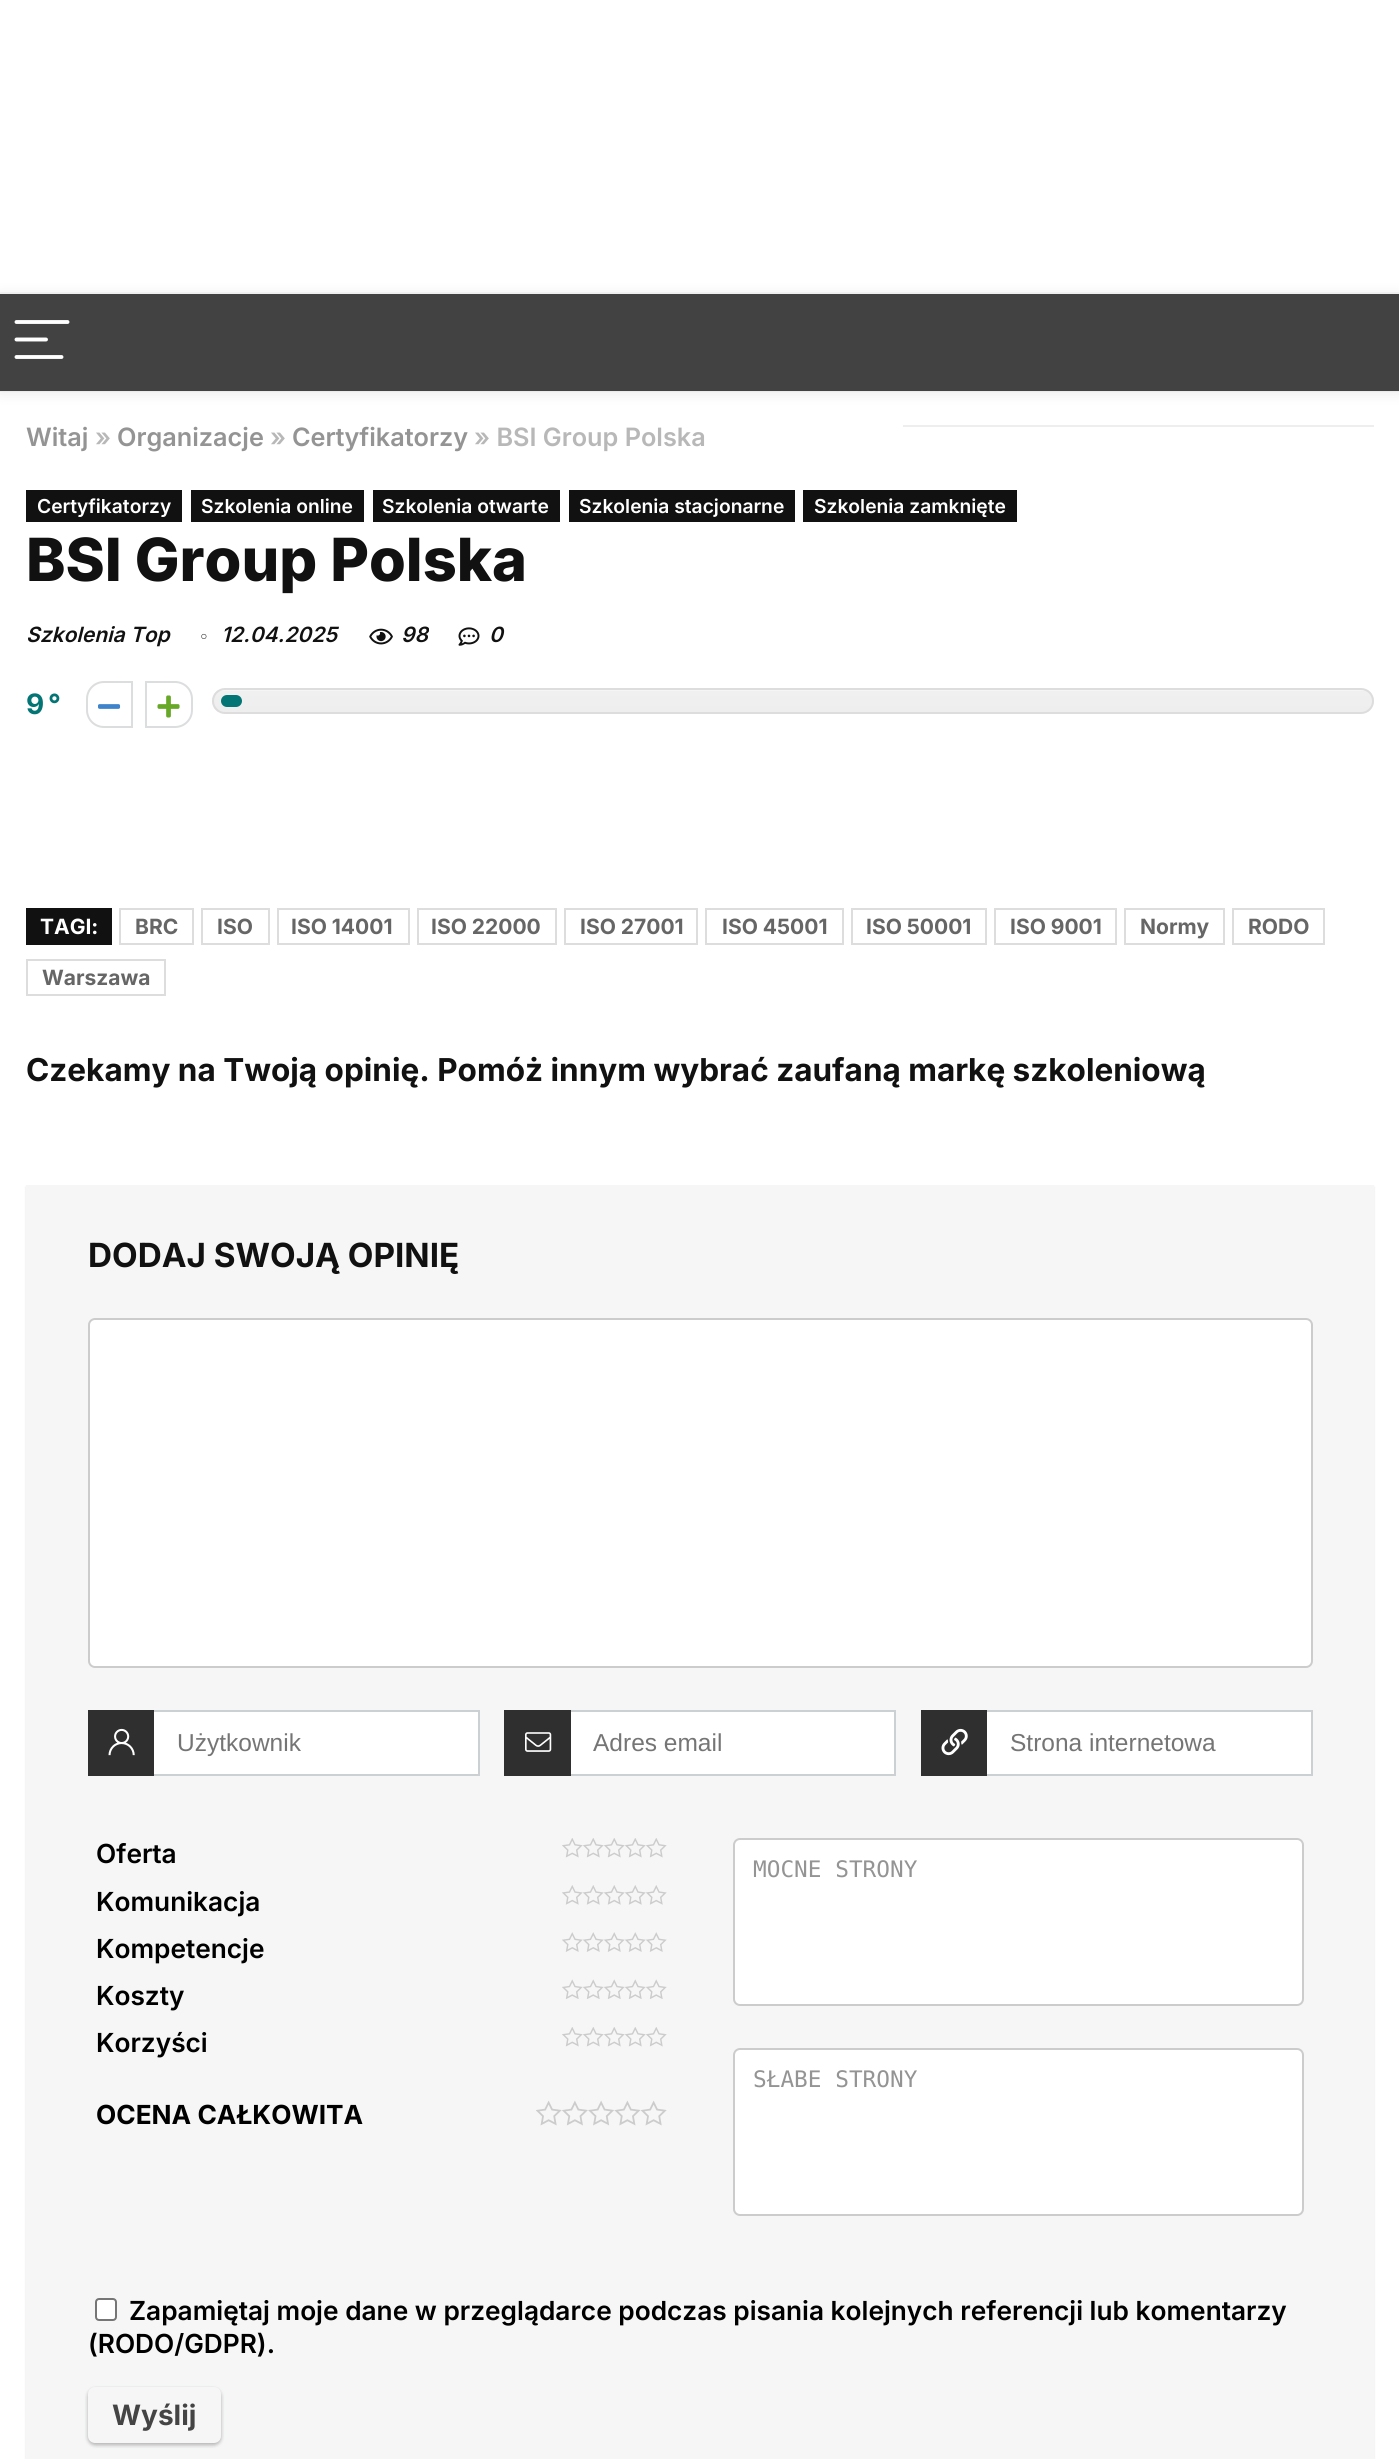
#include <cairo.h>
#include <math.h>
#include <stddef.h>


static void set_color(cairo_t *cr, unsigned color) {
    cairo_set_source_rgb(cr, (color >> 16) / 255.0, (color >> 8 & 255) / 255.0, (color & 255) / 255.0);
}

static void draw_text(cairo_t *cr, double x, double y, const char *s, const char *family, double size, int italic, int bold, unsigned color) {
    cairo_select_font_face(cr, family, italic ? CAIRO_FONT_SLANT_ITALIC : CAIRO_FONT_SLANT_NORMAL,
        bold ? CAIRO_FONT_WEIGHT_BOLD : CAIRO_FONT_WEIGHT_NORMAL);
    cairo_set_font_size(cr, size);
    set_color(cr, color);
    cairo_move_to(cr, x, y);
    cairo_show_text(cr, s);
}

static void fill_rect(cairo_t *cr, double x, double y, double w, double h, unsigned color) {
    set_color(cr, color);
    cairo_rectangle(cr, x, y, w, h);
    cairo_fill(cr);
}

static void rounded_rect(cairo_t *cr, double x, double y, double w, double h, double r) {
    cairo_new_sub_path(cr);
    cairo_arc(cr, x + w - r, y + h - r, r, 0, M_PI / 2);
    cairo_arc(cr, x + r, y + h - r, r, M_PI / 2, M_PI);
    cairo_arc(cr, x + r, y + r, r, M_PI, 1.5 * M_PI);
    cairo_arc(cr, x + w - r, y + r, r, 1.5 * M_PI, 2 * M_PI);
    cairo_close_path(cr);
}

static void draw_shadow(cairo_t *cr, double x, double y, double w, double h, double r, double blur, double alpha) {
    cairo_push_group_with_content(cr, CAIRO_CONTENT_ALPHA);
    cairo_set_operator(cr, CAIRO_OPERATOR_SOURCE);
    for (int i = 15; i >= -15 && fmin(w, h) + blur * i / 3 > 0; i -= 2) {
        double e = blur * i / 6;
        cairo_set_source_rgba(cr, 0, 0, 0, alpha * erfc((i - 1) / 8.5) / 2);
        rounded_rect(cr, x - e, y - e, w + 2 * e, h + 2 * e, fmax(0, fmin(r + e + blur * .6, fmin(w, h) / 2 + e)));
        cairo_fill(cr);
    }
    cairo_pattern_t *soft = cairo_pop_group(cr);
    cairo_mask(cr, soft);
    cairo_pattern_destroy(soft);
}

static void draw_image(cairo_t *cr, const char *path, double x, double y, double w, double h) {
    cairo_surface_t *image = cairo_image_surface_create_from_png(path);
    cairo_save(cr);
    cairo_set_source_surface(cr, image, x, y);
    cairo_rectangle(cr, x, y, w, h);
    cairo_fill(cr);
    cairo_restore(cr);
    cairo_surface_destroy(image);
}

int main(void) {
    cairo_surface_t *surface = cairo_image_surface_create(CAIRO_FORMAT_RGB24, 1399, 2459);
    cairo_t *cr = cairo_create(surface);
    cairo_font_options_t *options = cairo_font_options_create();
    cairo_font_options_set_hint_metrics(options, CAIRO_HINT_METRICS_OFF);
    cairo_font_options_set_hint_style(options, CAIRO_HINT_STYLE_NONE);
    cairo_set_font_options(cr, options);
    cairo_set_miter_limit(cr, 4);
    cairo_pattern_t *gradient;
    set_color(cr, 0xFFFFFF);
    cairo_paint(cr);
    cairo_rectangle(cr, -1, 293, 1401, 98);
    set_color(cr, 0xF7F7F7);
    cairo_stroke(cr);
    set_color(cr, 0x000000);
    draw_shadow(cr, 0, 296, 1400, 96, 0, 7, 0.1);
    fill_rect(cr, 0, 294, 1399, 97, 0x434242);
    cairo_new_path(cr);
    cairo_move_to(cr, 16.5, 322);
    cairo_line_to(cr, 67.5, 322);
    cairo_move_to(cr, 16.5, 339.5);
    cairo_line_to(cr, 46, 339.5);
    cairo_move_to(cr, 16.5, 357);
    cairo_line_to(cr, 61.5, 357);
    set_color(cr, 0xFFFFFF);
    cairo_set_line_width(cr, 3.9);
    cairo_set_line_cap(cr, CAIRO_LINE_CAP_ROUND);
    cairo_stroke(cr);
    draw_text(cr, 26, 446, "Witaj", "Inter SemiBold", 25.25, 0, 0, 0x949494);
    draw_text(cr, 95, 446, "»", "Inter SemiBold", 25.25, 0, 0, 0xB8B8B8);
    draw_text(cr, 117, 446, "Organizacje", "Inter SemiBold", 25.25, 0, 0, 0x949494);
    draw_text(cr, 270, 446, "»", "Inter SemiBold", 25.25, 0, 0, 0xB8B8B8);
    draw_text(cr, 292, 446, "Certyfikatorzy", "Inter SemiBold", 25.25, 0, 0, 0x949494);
    draw_text(cr, 474, 446, "» BSI Group Polska", "Inter SemiBold", 25.25, 0, 0, 0xB8B8B8);
    fill_rect(cr, 903, 425, 471, 2, 0xEEEEEE);
    fill_rect(cr, 26, 490, 156, 32, 0x111111);
    draw_text(cr, 37, 513, "Certyfikatorzy", "Inter SemiBold", 19.25, 0, 0, 0xFFFFFF);
    fill_rect(cr, 191, 490, 173, 32, 0x111111);
    draw_text(cr, 201, 513, "Szkolenia online", "Inter SemiBold", 19.25, 0, 0, 0xFFFFFF);
    fill_rect(cr, 373, 490, 187, 32, 0x111111);
    draw_text(cr, 382, 513, "Szkolenia otwarte", "Inter SemiBold", 19.25, 0, 0, 0xFFFFFF);
    fill_rect(cr, 569, 490, 226, 32, 0x111111);
    draw_text(cr, 579, 513, "Szkolenia stacjonarne", "Inter SemiBold", 19.25, 0, 0, 0xFFFFFF);
    fill_rect(cr, 803, 490, 214, 32, 0x111111);
    draw_text(cr, 814, 513, "Szkolenia zamknięte", "Inter SemiBold", 19.25, 0, 0, 0xFFFFFF);
    draw_text(cr, 26, 581, "BSI Group Polska", "Inter ExtraBold", 59.5, 0, 0, 0x111111);
    draw_text(cr, 26, 642, "Szkolenia Top", "Inter SemiBold", 21, 1, 0, 0x111111);
    draw_image(cr, "assets/img1.png", 201, 633, 6, 6);
    draw_text(cr, 221, 642, "12.04.2025", "Inter SemiBold", 21, 1, 0, 0x111111);
    draw_image(cr, "assets/img2.png", 369, 628, 24, 17);
    draw_text(cr, 401, 642, "98", "Inter SemiBold", 21, 1, 0, 0x111111);
    draw_image(cr, "assets/img3.png", 458, 627, 22, 19);
    draw_text(cr, 489, 642, "0", "Inter SemiBold", 21, 1, 0, 0x111111);
    draw_text(cr, 26, 714, "9", "Inter", 28, 0, 1, 0x047575);
    draw_text(cr, 48, 714, "°", "Inter", 28, 0, 1, 0x047575);
    cairo_new_path(cr);
    cairo_move_to(cr, 104, 682);
    cairo_line_to(cr, 132, 682);
    cairo_line_to(cr, 132, 727);
    cairo_line_to(cr, 104, 727);
    cairo_curve_to(cr, 94.5, 727, 87, 719.5, 87, 710);
    cairo_line_to(cr, 87, 699);
    cairo_curve_to(cr, 87, 689.5, 94.5, 682, 104, 682);
    cairo_close_path(cr);
    set_color(cr, 0xDCDDDE);
    cairo_set_line_width(cr, 2);
    cairo_set_line_cap(cr, CAIRO_LINE_CAP_BUTT);
    cairo_stroke(cr);
    draw_image(cr, "assets/img4.png", 98, 704, 23, 5);
    cairo_new_path(cr);
    cairo_move_to(cr, 146, 682);
    cairo_line_to(cr, 175, 682);
    cairo_curve_to(cr, 184.5, 682, 192, 689.5, 192, 699);
    cairo_line_to(cr, 192, 710);
    cairo_curve_to(cr, 192, 719.5, 184.5, 727, 175, 727);
    cairo_line_to(cr, 146, 727);
    cairo_close_path(cr);
    cairo_stroke(cr);
    draw_image(cr, "assets/img5.png", 157, 695, 23, 23);
    cairo_save(cr);
    rounded_rect(cr, 212, 688, 1162, 26, 13);
    cairo_clip(cr);
    gradient = cairo_pattern_create_linear(793, 689, 793, 712);
    cairo_pattern_add_color_stop_rgba(gradient, 0.08, 0.961, 0.961, 0.961, 1);
    cairo_pattern_add_color_stop_rgba(gradient, 0.08, 0.941, 0.941, 0.941, 1);
    cairo_pattern_add_color_stop_rgba(gradient, 1, 0.933, 0.933, 0.933, 1);
    cairo_set_source(cr, gradient);
    cairo_pattern_destroy(gradient);
    cairo_rectangle(cr, 212, 690, 1162, 22);
    cairo_fill(cr);
    cairo_restore(cr);
    rounded_rect(cr, 213, 689, 1160, 24, 12);
    set_color(cr, 0xDDDDDD);
    cairo_stroke(cr);
    set_color(cr, 0x047575);
    rounded_rect(cr, 221, 695, 21, 12, 6);
    cairo_fill(cr);
    fill_rect(cr, 26, 908, 86, 37, 0x111111);
    draw_text(cr, 40, 934, "TAGI:", "Inter", 21, 0, 1, 0xFFFFFF);
    cairo_rectangle(cr, 120, 909, 73, 35);
    set_color(cr, 0xDDDDDD);
    cairo_stroke(cr);
    draw_text(cr, 135, 934, "BRC", "Inter", 21, 0, 1, 0x666666);
    cairo_rectangle(cr, 202, 909, 67, 35);
    set_color(cr, 0xDDDDDD);
    cairo_stroke(cr);
    draw_text(cr, 217, 934, "ISO", "Inter", 21, 0, 1, 0x666666);
    cairo_rectangle(cr, 278, 909, 131, 35);
    set_color(cr, 0xDDDDDD);
    cairo_stroke(cr);
    draw_text(cr, 291, 934, "ISO 14001", "Inter", 21, 0, 1, 0x666666);
    cairo_rectangle(cr, 418, 909, 138, 35);
    set_color(cr, 0xDDDDDD);
    cairo_stroke(cr);
    draw_text(cr, 431, 934, "ISO 22000", "Inter", 21, 0, 1, 0x666666);
    cairo_rectangle(cr, 565, 909, 132, 35);
    set_color(cr, 0xDDDDDD);
    cairo_stroke(cr);
    draw_text(cr, 580, 934, "ISO 27001", "Inter", 21, 0, 1, 0x666666);
    cairo_rectangle(cr, 706, 909, 137, 35);
    set_color(cr, 0xDDDDDD);
    cairo_stroke(cr);
    draw_text(cr, 722, 934, "ISO 45001", "Inter", 21, 0, 1, 0x666666);
    cairo_rectangle(cr, 852, 909, 134, 35);
    set_color(cr, 0xDDDDDD);
    cairo_stroke(cr);
    draw_text(cr, 866, 934, "ISO 50001", "Inter", 21, 0, 1, 0x666666);
    cairo_rectangle(cr, 995, 909, 121, 35);
    set_color(cr, 0xDDDDDD);
    cairo_stroke(cr);
    draw_text(cr, 1010, 934, "ISO 9001", "Inter", 21, 0, 1, 0x666666);
    cairo_rectangle(cr, 1125, 909, 99, 35);
    set_color(cr, 0xDDDDDD);
    cairo_stroke(cr);
    draw_text(cr, 1140, 934, "Normy", "Inter", 21, 0, 1, 0x666666);
    cairo_rectangle(cr, 1233, 909, 91, 35);
    set_color(cr, 0xDDDDDD);
    cairo_stroke(cr);
    draw_text(cr, 1248, 934, "RODO", "Inter", 21, 0, 1, 0x666666);
    cairo_rectangle(cr, 27, 960, 138, 35);
    set_color(cr, 0xDDDDDD);
    cairo_stroke(cr);
    draw_text(cr, 42, 985, "Warszawa", "Inter", 21, 0, 1, 0x666666);
    draw_text(cr, 26, 1081, "Czekamy na Twoją opinię. Pomóż innym wybrać zaufaną markę szkoleniową", "Inter", 31.5, 0, 1, 0x111111);
    set_color(cr, 0x000000);
    draw_shadow(cr, 26, 1187, 1348, 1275, 0, 1, 0.12);
    fill_rect(cr, 26, 1185, 1348, 1274, 0xF6F6F6);
    draw_text(cr, 88, 1267, "DODAJ SWOJĄ OPINIĘ", "Inter", 33.25, 0, 1, 0x111111);
    set_color(cr, 0xFFFFFF);
    rounded_rect(cr, 89, 1319, 1223, 348, 6);
    cairo_fill_preserve(cr);
    set_color(cr, 0xCCCCCC);
    cairo_stroke(cr);
    fill_rect(cr, 154, 1712, 324, 62, 0xFFFFFF);
    cairo_rectangle(cr, 89, 1711, 390, 64);
    set_color(cr, 0xCBD0D2);
    cairo_stroke(cr);
    fill_rect(cr, 88, 1710, 66, 66, 0x2F2F2F);
    draw_image(cr, "assets/img6.png", 108, 1728, 27, 28);
    draw_text(cr, 177, 1751, "Użytkownik", "Liberation Sans", 24.5, 0, 0, 0x757575);
    fill_rect(cr, 571, 1712, 323, 62, 0xFFFFFF);
    cairo_rectangle(cr, 505, 1711, 390, 64);
    set_color(cr, 0xCBD0D2);
    cairo_stroke(cr);
    fill_rect(cr, 504, 1710, 67, 66, 0x2F2F2F);
    draw_image(cr, "assets/img7.png", 525, 1732, 27, 20);
    draw_text(cr, 593, 1751, "Adres email", "Liberation Sans", 24.5, 0, 0, 0x757575);
    fill_rect(cr, 987, 1712, 324, 62, 0xFFFFFF);
    cairo_rectangle(cr, 922, 1711, 390, 64);
    set_color(cr, 0xCBD0D2);
    cairo_stroke(cr);
    fill_rect(cr, 921, 1710, 66, 66, 0x2F2F2F);
    draw_image(cr, "assets/img8.png", 941, 1728, 27, 28);
    draw_text(cr, 1010, 1751, "Strona internetowa", "Liberation Sans", 24.5, 0, 0, 0x757575);
    draw_text(cr, 96, 1863, "Oferta", "Inter SemiBold", 26.25, 0, 0, 0x000000);
    draw_image(cr, "assets/img9.png", 562, 1838, 105, 20);
    draw_text(cr, 96, 1911, "Komunikacja", "Inter SemiBold", 26.25, 0, 0, 0x000000);
    draw_image(cr, "assets/img10.png", 562, 1885, 105, 20);
    draw_text(cr, 96, 1958, "Kompetencje", "Inter SemiBold", 26.25, 0, 0, 0x000000);
    draw_image(cr, "assets/img11.png", 562, 1932, 105, 20);
    draw_text(cr, 96, 2005, "Koszty", "Inter SemiBold", 26.25, 0, 0, 0x000000);
    draw_image(cr, "assets/img12.png", 562, 1979, 105, 20);
    draw_text(cr, 96, 2052, "Korzyści", "Inter SemiBold", 26.25, 0, 0, 0x000000);
    draw_image(cr, "assets/img9.png", 562, 2027, 105, 20);
    draw_text(cr, 96, 2124, "OCENA CAŁKOWITA", "Inter", 26.25, 0, 1, 0x000000);
    draw_image(cr, "assets/img13.png", 536, 2100, 131, 26);
    set_color(cr, 0xFFFFFF);
    rounded_rect(cr, 734, 1839, 569, 166, 6);
    cairo_fill_preserve(cr);
    set_color(cr, 0xCCCCCC);
    cairo_stroke(cr);
    draw_text(cr, 753, 1877, "MOCNE STRONY", "DejaVu Sans Mono", 22.75, 0, 0, 0x949494);
    set_color(cr, 0xFFFFFF);
    rounded_rect(cr, 734, 2049, 569, 166, 6);
    cairo_fill_preserve(cr);
    set_color(cr, 0xCCCCCC);
    cairo_stroke(cr);
    draw_text(cr, 753, 2087, "SŁABE STRONY", "DejaVu Sans Mono", 22.75, 0, 0, 0x949494);
    set_color(cr, 0xFFFFFF);
    rounded_rect(cr, 96, 2299, 20, 21, 3);
    cairo_fill_preserve(cr);
    set_color(cr, 0x767676);
    cairo_stroke(cr);
    draw_text(cr, 129, 2320, "Zapamiętaj moje dane w przeglądarce podczas pisania kolejnych referencji lub komentarzy", "Inter SemiBold", 26.25, 0, 0, 0x000000);
    draw_text(cr, 88, 2353, "(RODO/GDPR).", "Inter SemiBold", 26.25, 0, 0, 0x000000);
    set_color(cr, 0x000000);
    draw_shadow(cr, 88, 2389, 133, 56, 7, 2, 0.08);
    set_color(cr, 0x3C4043);
    draw_shadow(cr, 88, 2389, 133, 56, 7, 2, 0.3);
    set_color(cr, 0xF6F6F6);
    rounded_rect(cr, 88, 2387, 133, 56, 7);
    cairo_fill(cr);
    draw_text(cr, 112, 2425, "Wyślij", "Inter", 28, 0, 1, 0x444444);
    cairo_surface_write_to_png(surface, "output.png");
    cairo_font_options_destroy(options);
    cairo_destroy(cr);
    cairo_surface_destroy(surface);
    return 0;
}
